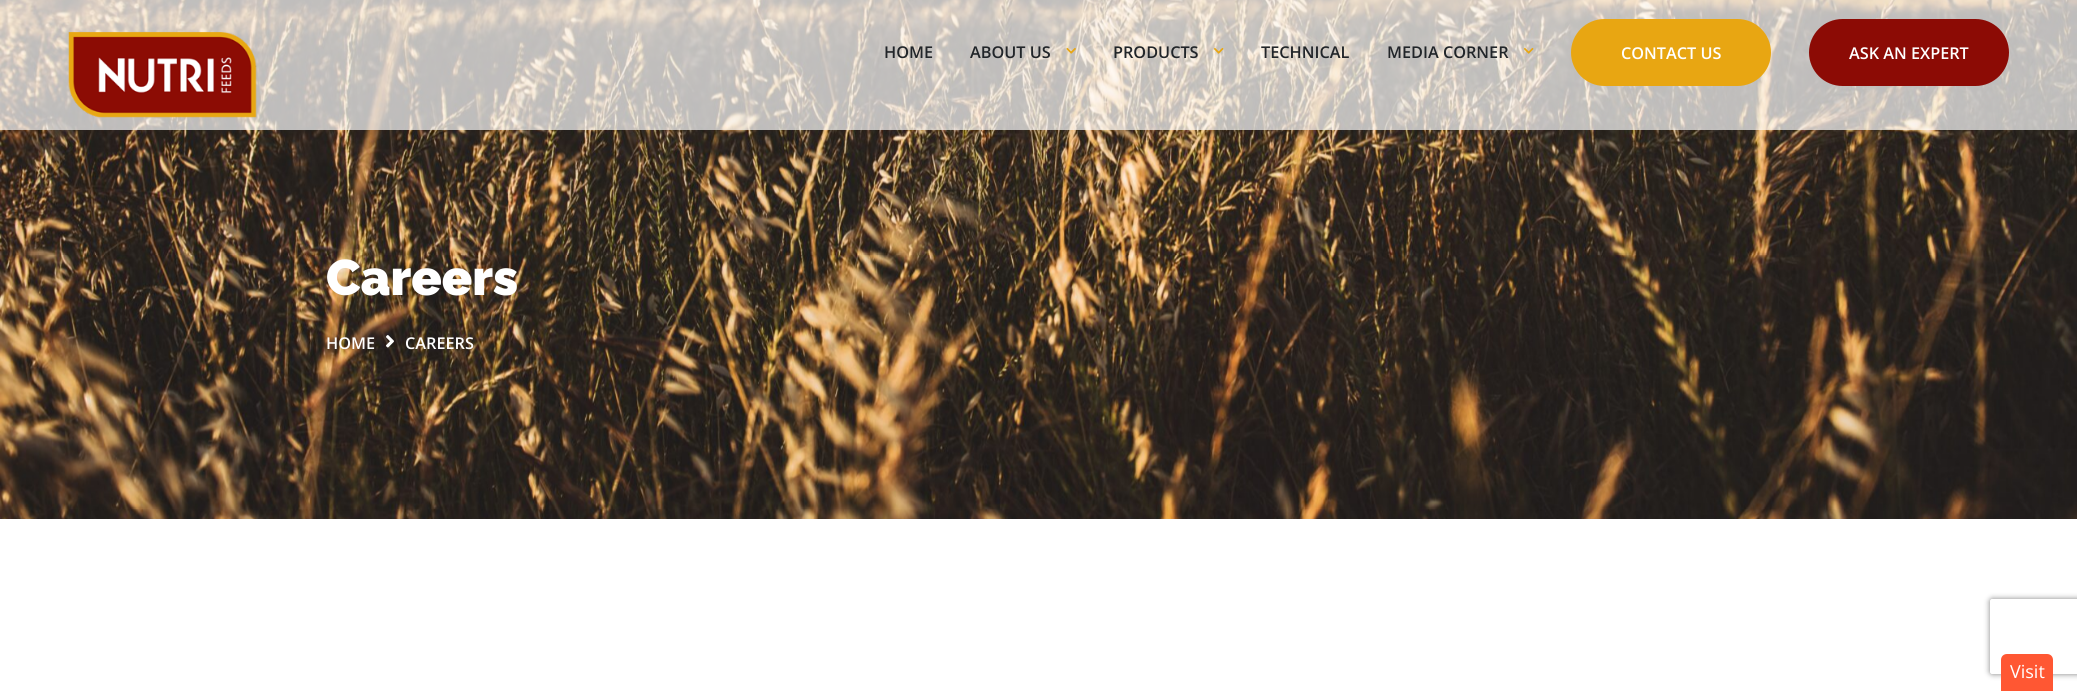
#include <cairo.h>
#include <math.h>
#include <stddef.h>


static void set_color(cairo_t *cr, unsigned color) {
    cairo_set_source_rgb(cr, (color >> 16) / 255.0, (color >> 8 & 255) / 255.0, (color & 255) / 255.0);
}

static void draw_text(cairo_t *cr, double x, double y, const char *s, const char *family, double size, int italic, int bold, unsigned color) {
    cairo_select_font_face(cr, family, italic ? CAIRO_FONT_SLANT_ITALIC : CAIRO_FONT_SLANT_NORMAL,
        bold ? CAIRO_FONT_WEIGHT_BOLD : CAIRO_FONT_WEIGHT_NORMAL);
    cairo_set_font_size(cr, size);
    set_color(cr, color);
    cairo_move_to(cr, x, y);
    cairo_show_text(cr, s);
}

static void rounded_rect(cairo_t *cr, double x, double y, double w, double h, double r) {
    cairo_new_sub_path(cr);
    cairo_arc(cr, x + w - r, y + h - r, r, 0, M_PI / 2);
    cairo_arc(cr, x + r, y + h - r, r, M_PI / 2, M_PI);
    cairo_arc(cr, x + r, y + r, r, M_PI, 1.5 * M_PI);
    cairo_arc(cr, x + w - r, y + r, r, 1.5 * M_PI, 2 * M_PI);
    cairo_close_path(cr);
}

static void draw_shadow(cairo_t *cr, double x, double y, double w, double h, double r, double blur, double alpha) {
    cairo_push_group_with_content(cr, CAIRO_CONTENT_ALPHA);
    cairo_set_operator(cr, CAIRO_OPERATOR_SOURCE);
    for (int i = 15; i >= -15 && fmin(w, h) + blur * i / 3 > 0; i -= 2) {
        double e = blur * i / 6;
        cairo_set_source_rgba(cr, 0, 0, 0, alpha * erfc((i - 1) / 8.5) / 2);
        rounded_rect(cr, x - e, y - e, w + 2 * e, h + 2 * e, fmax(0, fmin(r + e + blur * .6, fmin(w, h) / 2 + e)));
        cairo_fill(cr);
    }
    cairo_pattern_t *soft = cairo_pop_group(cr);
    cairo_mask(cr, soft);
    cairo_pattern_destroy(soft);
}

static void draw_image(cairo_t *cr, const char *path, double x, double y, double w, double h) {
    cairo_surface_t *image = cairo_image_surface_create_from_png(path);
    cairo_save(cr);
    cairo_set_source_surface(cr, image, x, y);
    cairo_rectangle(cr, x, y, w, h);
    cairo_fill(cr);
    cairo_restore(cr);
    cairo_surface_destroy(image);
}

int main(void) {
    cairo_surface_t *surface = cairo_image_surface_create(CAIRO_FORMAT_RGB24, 2077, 691);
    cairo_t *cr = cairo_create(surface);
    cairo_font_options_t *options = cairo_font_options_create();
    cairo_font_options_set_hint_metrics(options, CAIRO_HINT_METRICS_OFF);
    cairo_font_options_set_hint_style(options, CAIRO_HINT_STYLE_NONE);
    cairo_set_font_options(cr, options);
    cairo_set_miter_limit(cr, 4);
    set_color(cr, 0xFFFFFF);
    cairo_paint(cr);
    draw_image(cr, "assets/img5.png", 0, 0, 2077, 519);
    cairo_set_source_rgba(cr, 1, 1, 1, 0.7);
    cairo_rectangle(cr, 0, 0, 2077, 130);
    cairo_fill(cr);
    draw_image(cr, "assets/img1.png", 68, 32, 189, 86);
    draw_text(cr, 884, 58, "HOME", "Open Sans SemiBold", 16.25, 0, 0, 0x212529);
    draw_text(cr, 970, 58, "ABOUT US", "Open Sans SemiBold", 16.25, 0, 0, 0x212529);
    draw_image(cr, "assets/img2.png", 1066, 47, 10, 7);
    draw_text(cr, 1113, 58, "PRODUCTS", "Open Sans SemiBold", 16.25, 0, 0, 0x212529);
    draw_image(cr, "assets/img3.png", 1213, 47, 11, 7);
    draw_text(cr, 1261, 58, "TECHNICAL", "Open Sans SemiBold", 16.25, 0, 0, 0x212529);
    draw_text(cr, 1387, 58, "MEDIA CORNER", "Open Sans SemiBold", 16.25, 0, 0, 0x212529);
    draw_image(cr, "assets/img4.png", 1523, 47, 11, 7);
    set_color(cr, 0xE8A612);
    rounded_rect(cr, 1572.5, 20.5, 197, 64, 32);
    cairo_fill_preserve(cr);
    cairo_set_line_width(cr, 3);
    cairo_stroke(cr);
    draw_text(cr, 1621, 59, "CONTACT US", "Open Sans SemiBold", 16.25, 0, 0, 0xFFFFFF);
    set_color(cr, 0x8C0B05);
    rounded_rect(cr, 1810.5, 20.5, 197, 64, 32);
    cairo_fill_preserve(cr);
    cairo_stroke(cr);
    draw_text(cr, 1849, 59, "ASK AN EXPERT", "Open Sans SemiBold", 16.25, 0, 0, 0xFFFFFF);
    draw_text(cr, 326, 295, "Careers", "Raleway Black", 50, 0, 0, 0xFFFFFF);
    draw_text(cr, 326, 349, "HOME", "Open Sans SemiBold", 16.25, 0, 0, 0xFFFFFF);
    draw_image(cr, "assets/img6.png", 386, 335, 8, 13);
    draw_text(cr, 405, 349, "CAREERS", "Open Sans SemiBold", 16.25, 0, 0, 0xFFFFFF);
    cairo_save(cr);
    cairo_set_fill_rule(cr, CAIRO_FILL_RULE_EVEN_ODD);
    cairo_new_path(cr);
    cairo_move_to(cr, 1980, 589);
    cairo_line_to(cr, 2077, 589);
    cairo_line_to(cr, 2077, 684);
    cairo_line_to(cr, 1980, 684);
    cairo_close_path(cr);
    cairo_move_to(cr, 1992.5, 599);
    cairo_line_to(cr, 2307.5, 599);
    cairo_curve_to(cr, 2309, 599, 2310, 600, 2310, 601.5);
    cairo_line_to(cr, 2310, 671.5);
    cairo_curve_to(cr, 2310, 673, 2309, 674, 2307.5, 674);
    cairo_line_to(cr, 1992.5, 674);
    cairo_curve_to(cr, 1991, 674, 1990, 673, 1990, 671.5);
    cairo_line_to(cr, 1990, 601.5);
    cairo_curve_to(cr, 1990, 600, 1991, 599, 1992.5, 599);
    cairo_close_path(cr);
    cairo_clip(cr);
    set_color(cr, 0x808080);
    draw_shadow(cr, 1990, 599, 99, 75, 2.5, 3, 1);
    cairo_restore(cr);
    set_color(cr, 0xFF5733);
    cairo_new_path(cr);
    cairo_move_to(cr, 2007, 654);
    cairo_line_to(cr, 2047, 654);
    cairo_curve_to(cr, 2050.5, 654, 2053, 656.5, 2053, 660);
    cairo_line_to(cr, 2053, 691);
    cairo_line_to(cr, 2001, 691);
    cairo_line_to(cr, 2001, 660);
    cairo_curve_to(cr, 2001, 656.5, 2003.5, 654, 2007, 654);
    cairo_close_path(cr);
    cairo_fill(cr);
    draw_text(cr, 2010, 678, "Visit", "Open Sans", 18, 0, 0, 0xFFFFFF);
    cairo_surface_write_to_png(surface, "output.png");
    cairo_font_options_destroy(options);
    cairo_destroy(cr);
    cairo_surface_destroy(surface);
    return 0;
}
